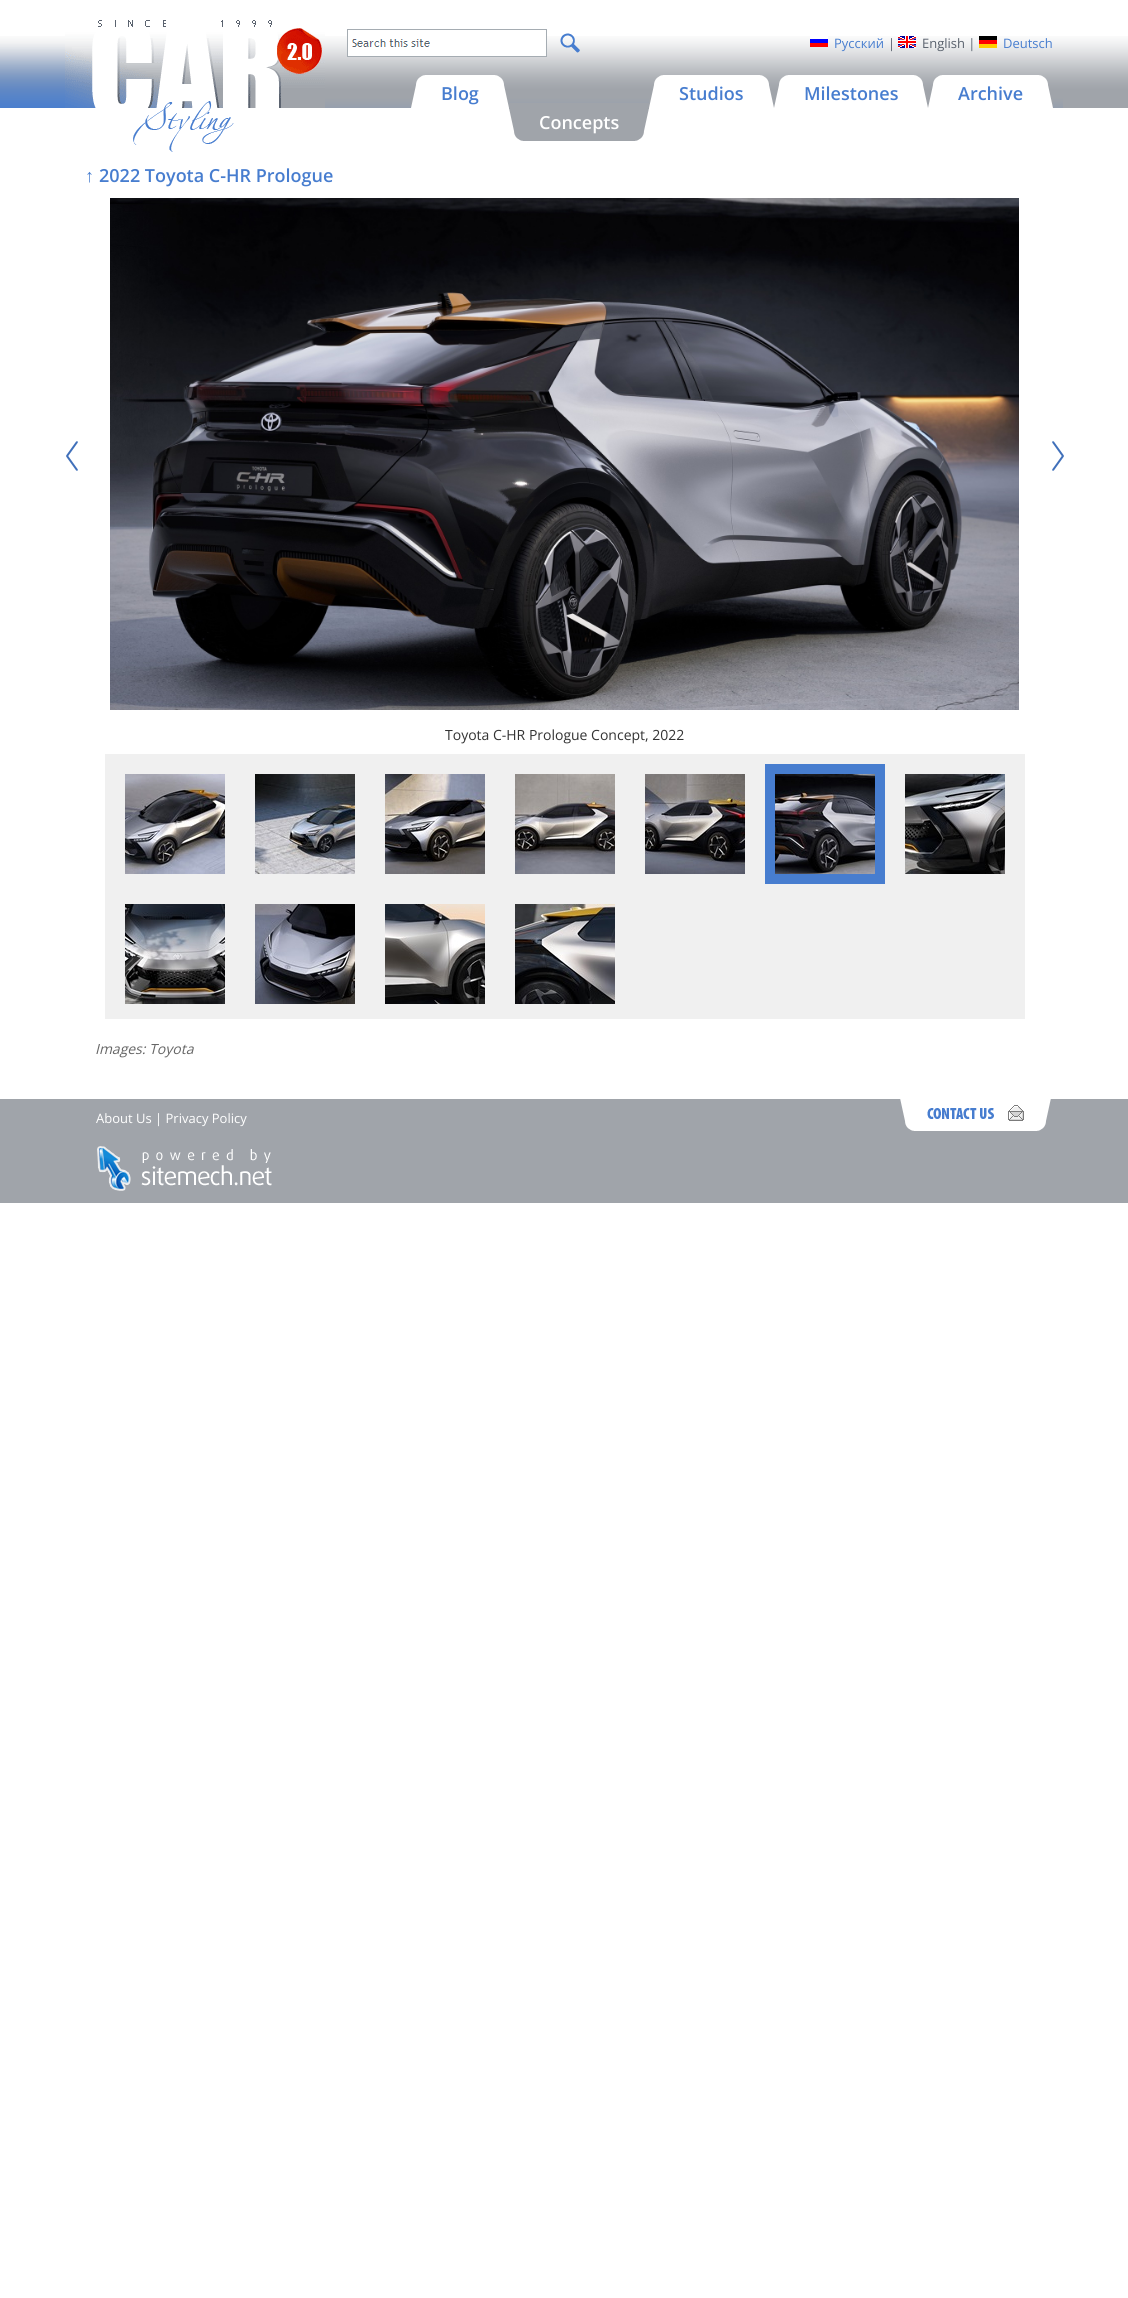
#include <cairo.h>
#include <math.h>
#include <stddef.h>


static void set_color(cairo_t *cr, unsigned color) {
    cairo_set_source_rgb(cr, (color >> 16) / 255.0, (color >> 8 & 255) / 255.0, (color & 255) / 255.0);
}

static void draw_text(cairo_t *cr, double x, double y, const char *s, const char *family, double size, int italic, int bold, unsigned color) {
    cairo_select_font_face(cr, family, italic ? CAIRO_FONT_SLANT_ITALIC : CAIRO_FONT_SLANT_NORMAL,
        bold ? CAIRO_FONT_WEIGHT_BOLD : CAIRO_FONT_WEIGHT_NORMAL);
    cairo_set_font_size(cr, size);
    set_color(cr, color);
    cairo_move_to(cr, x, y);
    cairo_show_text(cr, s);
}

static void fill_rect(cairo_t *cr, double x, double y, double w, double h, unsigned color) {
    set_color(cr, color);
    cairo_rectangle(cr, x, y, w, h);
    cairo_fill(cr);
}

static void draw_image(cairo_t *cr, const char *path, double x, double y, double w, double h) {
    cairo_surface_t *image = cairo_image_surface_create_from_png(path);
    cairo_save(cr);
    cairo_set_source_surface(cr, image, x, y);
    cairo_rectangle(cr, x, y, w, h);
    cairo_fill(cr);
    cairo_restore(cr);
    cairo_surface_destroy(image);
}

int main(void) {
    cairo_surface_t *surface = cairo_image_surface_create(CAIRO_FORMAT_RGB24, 1128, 2298);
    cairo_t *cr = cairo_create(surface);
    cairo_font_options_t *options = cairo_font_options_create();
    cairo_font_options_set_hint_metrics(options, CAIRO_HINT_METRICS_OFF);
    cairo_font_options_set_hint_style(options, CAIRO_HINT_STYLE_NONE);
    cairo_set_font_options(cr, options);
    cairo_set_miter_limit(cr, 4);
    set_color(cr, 0xFFFFFF);
    cairo_paint(cr);
    draw_image(cr, "assets/img1.png", 0, 36, 65, 72);
    draw_image(cr, "assets/img2.png", 325, 36, 738, 72);
    draw_image(cr, "assets/img3.png", 65, 20, 260, 132);
    fill_rect(cr, 348, 36, 198, 20, 0xFFFFFF);
    draw_image(cr, "assets/img4.png", 352, 39, 78, 8);
    cairo_rectangle(cr, 347.5, 29.5, 199, 27);
    set_color(cr, 0xA5ACB2);
    cairo_set_line_width(cr, 1);
    cairo_stroke(cr);
    draw_image(cr, "assets/img5.png", 560, 33, 20, 20);
    draw_image(cr, "assets/img6.png", 810, 36, 18, 11);
    draw_text(cr, 834, 48, "Русский", "Open Sans", 13, 0, 0, 0x477DCF);
    draw_text(cr, 888, 48, "|", "Open Sans", 13, 0, 0, 0x59616D);
    draw_image(cr, "assets/img7.png", 898, 36, 18, 12);
    draw_text(cr, 922, 48, "English |", "Open Sans", 13, 0, 0, 0x59616D);
    draw_image(cr, "assets/img8.png", 979, 36, 18, 12);
    draw_text(cr, 1003, 48, "Deutsch", "Open Sans", 13, 0, 0, 0x477DCF);
    draw_image(cr, "assets/img9.png", 411, 75, 15, 33);
    fill_rect(cr, 426, 75, 68, 33, 0xFFFFFF);
    draw_text(cr, 441, 100, "Blog", "Open Sans SemiBold", 18, 0, 0, 0x477DCF);
    draw_image(cr, "assets/img10.png", 494, 75, 15, 33);
    draw_image(cr, "assets/img9.png", 649, 75, 15, 33);
    fill_rect(cr, 664, 75, 95, 33, 0xFFFFFF);
    draw_text(cr, 679, 100, "Studios", "Open Sans SemiBold", 18, 0, 0, 0x477DCF);
    draw_image(cr, "assets/img10.png", 759, 75, 15, 33);
    draw_image(cr, "assets/img9.png", 774, 75, 15, 33);
    fill_rect(cr, 789, 75, 124, 33, 0xFFFFFF);
    draw_text(cr, 804, 100, "Milestones", "Open Sans SemiBold", 18, 0, 0, 0x477DCF);
    draw_image(cr, "assets/img10.png", 913, 75, 15, 33);
    draw_image(cr, "assets/img9.png", 928, 75, 15, 33);
    fill_rect(cr, 943, 75, 95, 33, 0xFFFFFF);
    draw_text(cr, 958, 100, "Archive", "Open Sans SemiBold", 18, 0, 0, 0x477DCF);
    draw_image(cr, "assets/img10.png", 1038, 75, 15, 33);
    draw_image(cr, "assets/img11.png", 509, 103, 15, 38);
    fill_rect(cr, 524, 103, 110, 38, 0xA0A4AA);
    draw_text(cr, 539, 129, "Concepts", "Open Sans SemiBold", 18, 0, 0, 0xFFFFFF);
    draw_image(cr, "assets/img12.png", 634, 103, 15, 38);
    draw_text(cr, 85, 182, "↑", "Liberation Sans", 18, 0, 1, 0x477DCF);
    draw_text(cr, 99, 182, "2022 Toyota C-HR Prologue", "Open Sans SemiBold", 18, 0, 0, 0x477DCF);
    draw_image(cr, "assets/img13.png", 110, 198, 909, 512);
    draw_image(cr, "assets/img14.png", 66, 441, 12, 30);
    draw_image(cr, "assets/img15.png", 1052, 441, 12, 30);
    draw_text(cr, 445, 740, "Toyota C-HR Prologue Concept, 2022", "Open Sans", 14, 0, 0, 0x333333);
    fill_rect(cr, 105, 754, 920, 265, 0xF0F0F0);
    draw_image(cr, "assets/img16.png", 125, 774, 100, 100);
    draw_image(cr, "assets/img17.png", 255, 774, 100, 100);
    draw_image(cr, "assets/img18.png", 385, 774, 100, 100);
    draw_image(cr, "assets/img19.png", 515, 774, 100, 100);
    draw_image(cr, "assets/img20.png", 645, 774, 100, 100);
    fill_rect(cr, 765, 764, 120, 120, 0x477DCF);
    draw_image(cr, "assets/img21.png", 775, 774, 100, 100);
    draw_image(cr, "assets/img22.png", 905, 774, 100, 100);
    draw_image(cr, "assets/img23.png", 125, 904, 100, 100);
    draw_image(cr, "assets/img24.png", 255, 904, 100, 100);
    draw_image(cr, "assets/img25.png", 385, 904, 100, 100);
    draw_image(cr, "assets/img26.png", 515, 904, 100, 100);
    draw_text(cr, 95, 1054, "Images: Toyota", "Open Sans", 14, 1, 0, 0x666666);
    draw_image(cr, "assets/img27.png", 1063, 36, 65, 72);
    fill_rect(cr, 0, 1099, 1128, 104, 0xA0A4AA);
    draw_text(cr, 96, 1123, "About Us | Privacy Policy", "Open Sans", 13, 0, 0, 0xFFFFFF);
    draw_image(cr, "assets/img28.png", 97, 1146, 175, 45);
    draw_image(cr, "assets/img29.png", 900, 1099, 151, 32);
    cairo_surface_write_to_png(surface, "output.png");
    cairo_font_options_destroy(options);
    cairo_destroy(cr);
    cairo_surface_destroy(surface);
    return 0;
}
